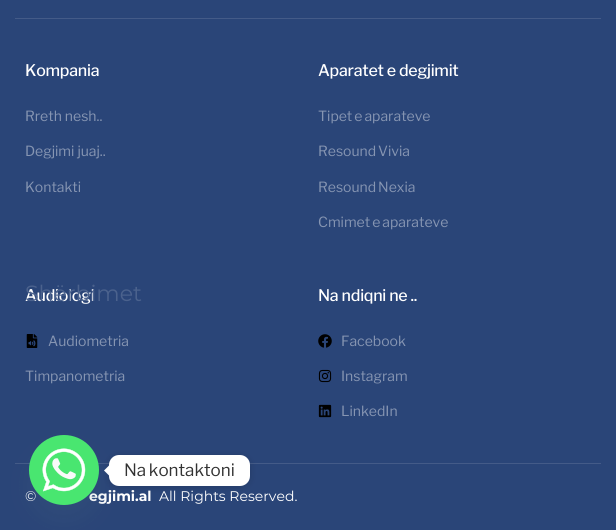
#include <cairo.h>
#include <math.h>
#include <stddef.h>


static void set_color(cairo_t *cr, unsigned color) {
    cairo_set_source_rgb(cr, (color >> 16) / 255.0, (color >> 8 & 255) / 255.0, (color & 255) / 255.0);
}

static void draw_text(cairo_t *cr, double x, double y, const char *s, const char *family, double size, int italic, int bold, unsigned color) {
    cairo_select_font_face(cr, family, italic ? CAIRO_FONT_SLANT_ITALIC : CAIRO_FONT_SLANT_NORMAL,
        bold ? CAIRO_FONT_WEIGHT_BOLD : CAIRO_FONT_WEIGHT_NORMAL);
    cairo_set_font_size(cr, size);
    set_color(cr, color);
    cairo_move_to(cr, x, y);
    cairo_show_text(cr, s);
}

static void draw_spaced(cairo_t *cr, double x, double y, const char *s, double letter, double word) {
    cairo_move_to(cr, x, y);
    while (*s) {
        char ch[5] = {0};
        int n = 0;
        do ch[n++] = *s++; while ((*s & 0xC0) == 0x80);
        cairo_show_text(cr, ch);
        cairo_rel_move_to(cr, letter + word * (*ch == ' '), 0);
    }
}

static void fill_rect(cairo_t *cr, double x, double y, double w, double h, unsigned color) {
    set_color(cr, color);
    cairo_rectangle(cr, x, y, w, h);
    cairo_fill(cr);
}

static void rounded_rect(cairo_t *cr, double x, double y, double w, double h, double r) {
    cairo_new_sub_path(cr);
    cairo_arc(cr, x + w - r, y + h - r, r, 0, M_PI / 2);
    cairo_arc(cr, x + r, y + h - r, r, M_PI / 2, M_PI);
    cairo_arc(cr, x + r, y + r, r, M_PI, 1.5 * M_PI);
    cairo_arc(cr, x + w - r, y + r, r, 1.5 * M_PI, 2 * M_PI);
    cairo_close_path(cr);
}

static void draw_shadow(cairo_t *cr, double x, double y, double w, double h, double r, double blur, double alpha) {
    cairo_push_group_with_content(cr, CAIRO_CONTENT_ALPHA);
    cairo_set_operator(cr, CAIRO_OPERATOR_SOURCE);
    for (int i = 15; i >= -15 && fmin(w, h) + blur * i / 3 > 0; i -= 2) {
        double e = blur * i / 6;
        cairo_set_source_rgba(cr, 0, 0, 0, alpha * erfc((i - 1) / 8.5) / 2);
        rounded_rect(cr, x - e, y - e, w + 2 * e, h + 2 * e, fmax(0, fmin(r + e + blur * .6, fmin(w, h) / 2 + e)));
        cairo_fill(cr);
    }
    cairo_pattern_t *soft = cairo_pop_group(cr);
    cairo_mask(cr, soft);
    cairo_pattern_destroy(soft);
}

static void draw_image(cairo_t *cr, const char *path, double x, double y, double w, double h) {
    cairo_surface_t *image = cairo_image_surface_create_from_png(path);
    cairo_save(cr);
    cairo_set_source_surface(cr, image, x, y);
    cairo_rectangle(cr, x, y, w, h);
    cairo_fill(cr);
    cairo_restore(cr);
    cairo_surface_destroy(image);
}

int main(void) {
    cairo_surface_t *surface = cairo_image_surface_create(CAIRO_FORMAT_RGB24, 616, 530);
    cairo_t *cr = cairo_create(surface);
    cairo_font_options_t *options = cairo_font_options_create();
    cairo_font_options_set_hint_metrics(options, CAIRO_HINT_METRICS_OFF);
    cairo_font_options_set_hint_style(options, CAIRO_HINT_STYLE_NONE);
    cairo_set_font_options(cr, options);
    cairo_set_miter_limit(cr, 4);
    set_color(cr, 0x2A4578);
    cairo_paint(cr);
    fill_rect(cr, 15, 18, 586, 1, 0x445B88);
    fill_rect(cr, 15, 463, 586, 1, 0x445B88);
    cairo_select_font_face(cr, "Libre Franklin Medium", CAIRO_FONT_SLANT_NORMAL, CAIRO_FONT_WEIGHT_NORMAL);
    cairo_set_font_size(cr, 16);
    set_color(cr, 0xFFFFFF);
    draw_spaced(cr, 25, 76, "Kompania", -0.25, 0);
    draw_text(cr, 25, 121, "Rreth nesh..", "Libre Franklin", 14, 0, 0, 0x8695B2);
    draw_text(cr, 25, 156, "Degjimi juaj..", "Libre Franklin", 14, 0, 0, 0x8695B2);
    draw_text(cr, 25, 192, "Kontakti", "Libre Franklin", 14, 0, 0, 0x8695B2);
    cairo_select_font_face(cr, "Libre Franklin Medium", CAIRO_FONT_SLANT_NORMAL, CAIRO_FONT_WEIGHT_NORMAL);
    cairo_set_font_size(cr, 16);
    set_color(cr, 0xFFFFFF);
    draw_spaced(cr, 318, 76, "Aparatet e degjimit", -0.25, 0);
    cairo_select_font_face(cr, "Libre Franklin", CAIRO_FONT_SLANT_NORMAL, CAIRO_FONT_WEIGHT_NORMAL);
    cairo_set_font_size(cr, 14);
    set_color(cr, 0x8695B2);
    draw_spaced(cr, 318, 121, "Tipet e aparateve", 0, -1);
    draw_spaced(cr, 318, 156, "Resound Vivia", 0, -1);
    draw_spaced(cr, 318, 192, "Resound Nexia", 0, -1);
    draw_spaced(cr, 318, 227, "Cmimet e aparateve", 0, -1);
    cairo_select_font_face(cr, "Libre Franklin Medium", CAIRO_FONT_SLANT_NORMAL, CAIRO_FONT_WEIGHT_NORMAL);
    cairo_set_font_size(cr, 16);
    set_color(cr, 0xFFFFFF);
    draw_spaced(cr, 25, 301, "Audiologi", -0.25, 0);
    draw_image(cr, "assets/img1.png", 26, 334, 12, 14);
    draw_text(cr, 48, 346, "Audiometria", "Libre Franklin", 14, 0, 0, 0x8695B2);
    draw_text(cr, 25, 381, "Timpanometria", "Libre Franklin", 14, 0, 0, 0x8695B2);
    cairo_select_font_face(cr, "Libre Franklin Medium", CAIRO_FONT_SLANT_NORMAL, CAIRO_FONT_WEIGHT_NORMAL);
    cairo_set_font_size(cr, 16);
    set_color(cr, 0xFFFFFF);
    draw_spaced(cr, 318, 301, "Na ndiqni ne ..", -0.25, 0);
    draw_image(cr, "assets/img2.png", 318, 334, 14, 14);
    draw_text(cr, 341, 346, "Facebook", "Libre Franklin", 14, 0, 0, 0x8695B2);
    draw_image(cr, "assets/img3.png", 318, 369, 14, 14);
    draw_text(cr, 341, 381, "Instagram", "Libre Franklin", 14, 0, 0, 0x8695B2);
    draw_image(cr, "assets/img4.png", 318, 404, 14, 14);
    draw_text(cr, 341, 416, "LinkedIn", "Libre Franklin", 14, 0, 0, 0x8695B2);
    draw_text(cr, 25, 501, "©", "Montserrat", 14, 0, 0, 0xFFFFFF);
    draw_text(cr, 89, 501, "egjimi.al", "Montserrat", 14, 0, 1, 0xFFFFFF);
    draw_text(cr, 159, 501, "All Rights Reserved.", "Montserrat", 14, 0, 0, 0xFFFFFF);
    draw_text(cr, 25, 301, "Shërbimet", "Montserrat", 22, 0, 0, 0x4B628D);
    set_color(cr, 0x49687E);
    draw_shadow(cr, 29, 451, 70, 70, 35, 12, 0.16);
    draw_image(cr, "assets/img5.png", 29, 435, 70, 70);
    set_color(cr, 0x000000);
    draw_shadow(cr, 109, 456, 141, 31, 10, 4, 0.15);
    set_color(cr, 0xFFFFFF);
    rounded_rect(cr, 109, 455, 141, 31, 10);
    cairo_fill(cr);
    cairo_new_path(cr);
    cairo_move_to(cr, 109, 465.5);
    cairo_line_to(cr, 109, 475.5);
    cairo_line_to(cr, 104, 470.5);
    cairo_close_path(cr);
    cairo_fill(cr);
    cairo_select_font_face(cr, "Libre Franklin", CAIRO_FONT_SLANT_NORMAL, CAIRO_FONT_WEIGHT_NORMAL);
    cairo_set_font_size(cr, 17);
    set_color(cr, 0x333333);
    draw_spaced(cr, 124, 476, "Na kontaktoni", 0, -1);
    cairo_surface_write_to_png(surface, "output.png");
    cairo_font_options_destroy(options);
    cairo_destroy(cr);
    cairo_surface_destroy(surface);
    return 0;
}
